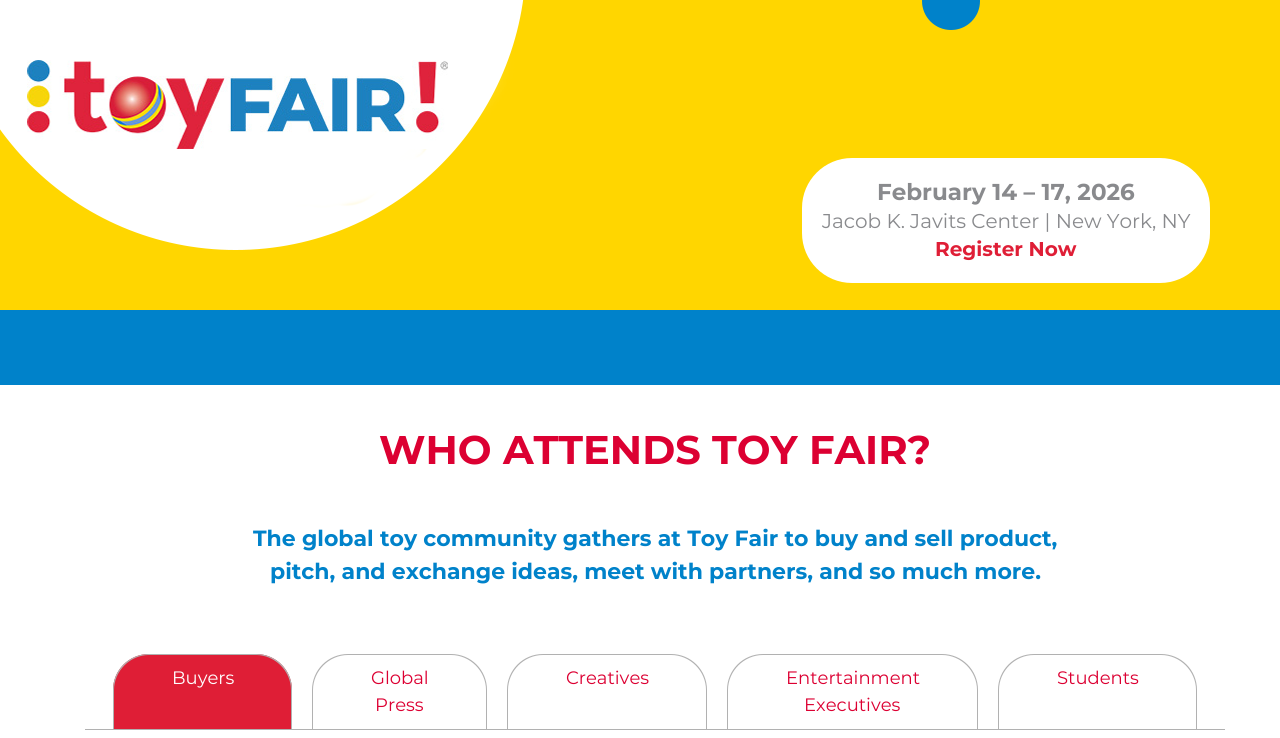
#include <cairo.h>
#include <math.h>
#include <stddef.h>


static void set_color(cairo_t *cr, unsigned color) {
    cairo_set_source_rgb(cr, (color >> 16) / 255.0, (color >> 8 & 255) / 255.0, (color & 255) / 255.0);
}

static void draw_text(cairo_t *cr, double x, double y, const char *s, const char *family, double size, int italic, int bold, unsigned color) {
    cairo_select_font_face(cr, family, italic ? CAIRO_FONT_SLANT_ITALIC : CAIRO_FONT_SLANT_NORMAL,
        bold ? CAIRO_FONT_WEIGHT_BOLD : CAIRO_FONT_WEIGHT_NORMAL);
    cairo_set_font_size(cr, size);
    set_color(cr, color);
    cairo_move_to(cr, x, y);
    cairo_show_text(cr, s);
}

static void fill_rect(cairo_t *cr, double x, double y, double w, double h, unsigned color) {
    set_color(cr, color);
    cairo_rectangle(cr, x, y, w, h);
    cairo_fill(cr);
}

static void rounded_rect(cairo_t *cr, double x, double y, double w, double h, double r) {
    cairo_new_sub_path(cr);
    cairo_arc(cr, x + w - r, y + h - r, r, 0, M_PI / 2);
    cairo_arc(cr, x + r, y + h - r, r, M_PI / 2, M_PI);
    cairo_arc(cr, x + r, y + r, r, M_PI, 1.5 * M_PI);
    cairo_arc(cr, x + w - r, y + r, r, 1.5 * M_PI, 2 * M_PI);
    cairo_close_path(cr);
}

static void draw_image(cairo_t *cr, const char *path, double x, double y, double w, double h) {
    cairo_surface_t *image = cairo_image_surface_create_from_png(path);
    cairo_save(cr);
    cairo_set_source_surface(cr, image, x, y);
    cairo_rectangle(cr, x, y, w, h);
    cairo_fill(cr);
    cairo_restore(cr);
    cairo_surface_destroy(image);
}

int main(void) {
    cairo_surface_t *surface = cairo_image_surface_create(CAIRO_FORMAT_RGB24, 1280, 738);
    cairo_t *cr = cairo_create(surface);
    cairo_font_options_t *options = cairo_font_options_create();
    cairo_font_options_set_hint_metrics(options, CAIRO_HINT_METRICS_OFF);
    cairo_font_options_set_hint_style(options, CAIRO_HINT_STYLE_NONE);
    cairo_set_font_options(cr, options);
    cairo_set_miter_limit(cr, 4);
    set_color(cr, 0xFFFFFF);
    cairo_paint(cr);
    fill_rect(cr, 0, 0, 1280, 310, 0xFFD600);
    draw_image(cr, "assets/img1.png", 0, 0, 980, 250);
    set_color(cr, 0xFFFFFF);
    rounded_rect(cr, 802, 158, 408, 125, 50);
    cairo_fill(cr);
    draw_text(cr, 877, 200, "February 14 – 17, 2026", "Montserrat", 23, 0, 1, 0x898A8D);
    draw_text(cr, 822, 228, "Jacob K. Javits Center | New York, NY", "Montserrat", 20, 0, 0, 0x898A8D);
    draw_text(cr, 935, 256, "Register Now", "Montserrat", 20, 0, 1, 0xDF1E36);
    fill_rect(cr, 0, 310, 1280, 75, 0x0082CA);
    draw_text(cr, 379, 464, "WHO ATTENDS TOY FAIR?", "Montserrat", 40, 0, 1, 0xDC0032);
    draw_text(cr, 253, 546, "The global toy community gathers at Toy Fair to buy and sell product,", "Montserrat", 22, 0, 1, 0x0082CA);
    draw_text(cr, 270, 579, "pitch, and exchange ideas, meet with partners, and so much more.", "Montserrat", 22, 0, 1, 0x0082CA);
    fill_rect(cr, 85, 729, 1140, 1, 0xB1B1B1);
    set_color(cr, 0xDF1E36);
    cairo_new_path(cr);
    cairo_move_to(cr, 149, 654);
    cairo_line_to(cr, 256, 654);
    cairo_curve_to(cr, 276, 654, 292, 670, 292, 690);
    cairo_line_to(cr, 292, 729);
    cairo_line_to(cr, 113, 729);
    cairo_line_to(cr, 113, 690);
    cairo_curve_to(cr, 113, 670, 129, 654, 149, 654);
    cairo_close_path(cr);
    cairo_fill(cr);
    set_color(cr, 0xB1B1B1);
    cairo_set_fill_rule(cr, CAIRO_FILL_RULE_EVEN_ODD);
    cairo_new_path(cr);
    cairo_move_to(cr, 149, 654);
    cairo_line_to(cr, 256, 654);
    cairo_curve_to(cr, 276, 654, 292, 670, 292, 690);
    cairo_line_to(cr, 292, 729);
    cairo_line_to(cr, 113, 729);
    cairo_line_to(cr, 113, 690);
    cairo_curve_to(cr, 113, 670, 129, 654, 149, 654);
    cairo_close_path(cr);
    cairo_move_to(cr, 149, 655);
    cairo_line_to(cr, 256, 655);
    cairo_curve_to(cr, 275, 655, 291, 671, 291, 690);
    cairo_line_to(cr, 291, 729);
    cairo_line_to(cr, 114, 729);
    cairo_line_to(cr, 114, 690);
    cairo_curve_to(cr, 114, 671, 130, 655, 149, 655);
    cairo_close_path(cr);
    cairo_fill(cr);
    draw_text(cr, 172, 684, "Buyers", "Montserrat", 18, 0, 0, 0xFFFFFF);
    set_color(cr, 0xB1B1B1);
    cairo_new_path(cr);
    cairo_move_to(cr, 348, 654);
    cairo_line_to(cr, 451, 654);
    cairo_curve_to(cr, 471, 654, 487, 670, 487, 690);
    cairo_line_to(cr, 487, 729);
    cairo_line_to(cr, 312, 729);
    cairo_line_to(cr, 312, 690);
    cairo_curve_to(cr, 312, 670, 328, 654, 348, 654);
    cairo_close_path(cr);
    cairo_move_to(cr, 348, 655);
    cairo_line_to(cr, 451, 655);
    cairo_curve_to(cr, 470, 655, 486, 671, 486, 690);
    cairo_line_to(cr, 486, 729);
    cairo_line_to(cr, 313, 729);
    cairo_line_to(cr, 313, 690);
    cairo_curve_to(cr, 313, 671, 329, 655, 348, 655);
    cairo_close_path(cr);
    cairo_fill(cr);
    draw_text(cr, 371, 684, "Global", "Montserrat", 18, 0, 0, 0xDC0032);
    draw_text(cr, 375, 711, "Press", "Montserrat", 18, 0, 0, 0xDC0032);
    set_color(cr, 0xB1B1B1);
    cairo_new_path(cr);
    cairo_move_to(cr, 543, 654);
    cairo_line_to(cr, 671, 654);
    cairo_curve_to(cr, 691, 654, 707, 670, 707, 690);
    cairo_line_to(cr, 707, 729);
    cairo_line_to(cr, 507, 729);
    cairo_line_to(cr, 507, 690);
    cairo_curve_to(cr, 507, 670, 523, 654, 543, 654);
    cairo_close_path(cr);
    cairo_move_to(cr, 543, 655);
    cairo_line_to(cr, 671, 655);
    cairo_curve_to(cr, 690, 655, 706, 671, 706, 690);
    cairo_line_to(cr, 706, 729);
    cairo_line_to(cr, 508, 729);
    cairo_line_to(cr, 508, 690);
    cairo_curve_to(cr, 508, 671, 524, 655, 543, 655);
    cairo_close_path(cr);
    cairo_fill(cr);
    draw_text(cr, 566, 684, "Creatives", "Montserrat", 18, 0, 0, 0xDC0032);
    set_color(cr, 0xB1B1B1);
    cairo_new_path(cr);
    cairo_move_to(cr, 763, 654);
    cairo_line_to(cr, 942, 654);
    cairo_curve_to(cr, 962, 654, 978, 670, 978, 690);
    cairo_line_to(cr, 978, 729);
    cairo_line_to(cr, 727, 729);
    cairo_line_to(cr, 727, 690);
    cairo_curve_to(cr, 727, 670, 743, 654, 763, 654);
    cairo_close_path(cr);
    cairo_move_to(cr, 763, 655);
    cairo_line_to(cr, 942, 655);
    cairo_curve_to(cr, 961, 655, 977, 671, 977, 690);
    cairo_line_to(cr, 977, 729);
    cairo_line_to(cr, 728, 729);
    cairo_line_to(cr, 728, 690);
    cairo_curve_to(cr, 728, 671, 744, 655, 763, 655);
    cairo_close_path(cr);
    cairo_fill(cr);
    draw_text(cr, 786, 684, "Entertainment", "Montserrat", 18, 0, 0, 0xDC0032);
    draw_text(cr, 804, 711, "Executives", "Montserrat", 18, 0, 0, 0xDC0032);
    set_color(cr, 0xB1B1B1);
    cairo_new_path(cr);
    cairo_move_to(cr, 1034, 654);
    cairo_line_to(cr, 1161, 654);
    cairo_curve_to(cr, 1181, 654, 1197, 670, 1197, 690);
    cairo_line_to(cr, 1197, 729);
    cairo_line_to(cr, 998, 729);
    cairo_line_to(cr, 998, 690);
    cairo_curve_to(cr, 998, 670, 1014, 654, 1034, 654);
    cairo_close_path(cr);
    cairo_move_to(cr, 1034, 655);
    cairo_line_to(cr, 1161, 655);
    cairo_curve_to(cr, 1180, 655, 1196, 671, 1196, 690);
    cairo_line_to(cr, 1196, 729);
    cairo_line_to(cr, 999, 729);
    cairo_line_to(cr, 999, 690);
    cairo_curve_to(cr, 999, 671, 1015, 655, 1034, 655);
    cairo_close_path(cr);
    cairo_fill(cr);
    draw_text(cr, 1057, 684, "Students", "Montserrat", 18, 0, 0, 0xDC0032);
    cairo_surface_write_to_png(surface, "output.png");
    cairo_font_options_destroy(options);
    cairo_destroy(cr);
    cairo_surface_destroy(surface);
    return 0;
}
